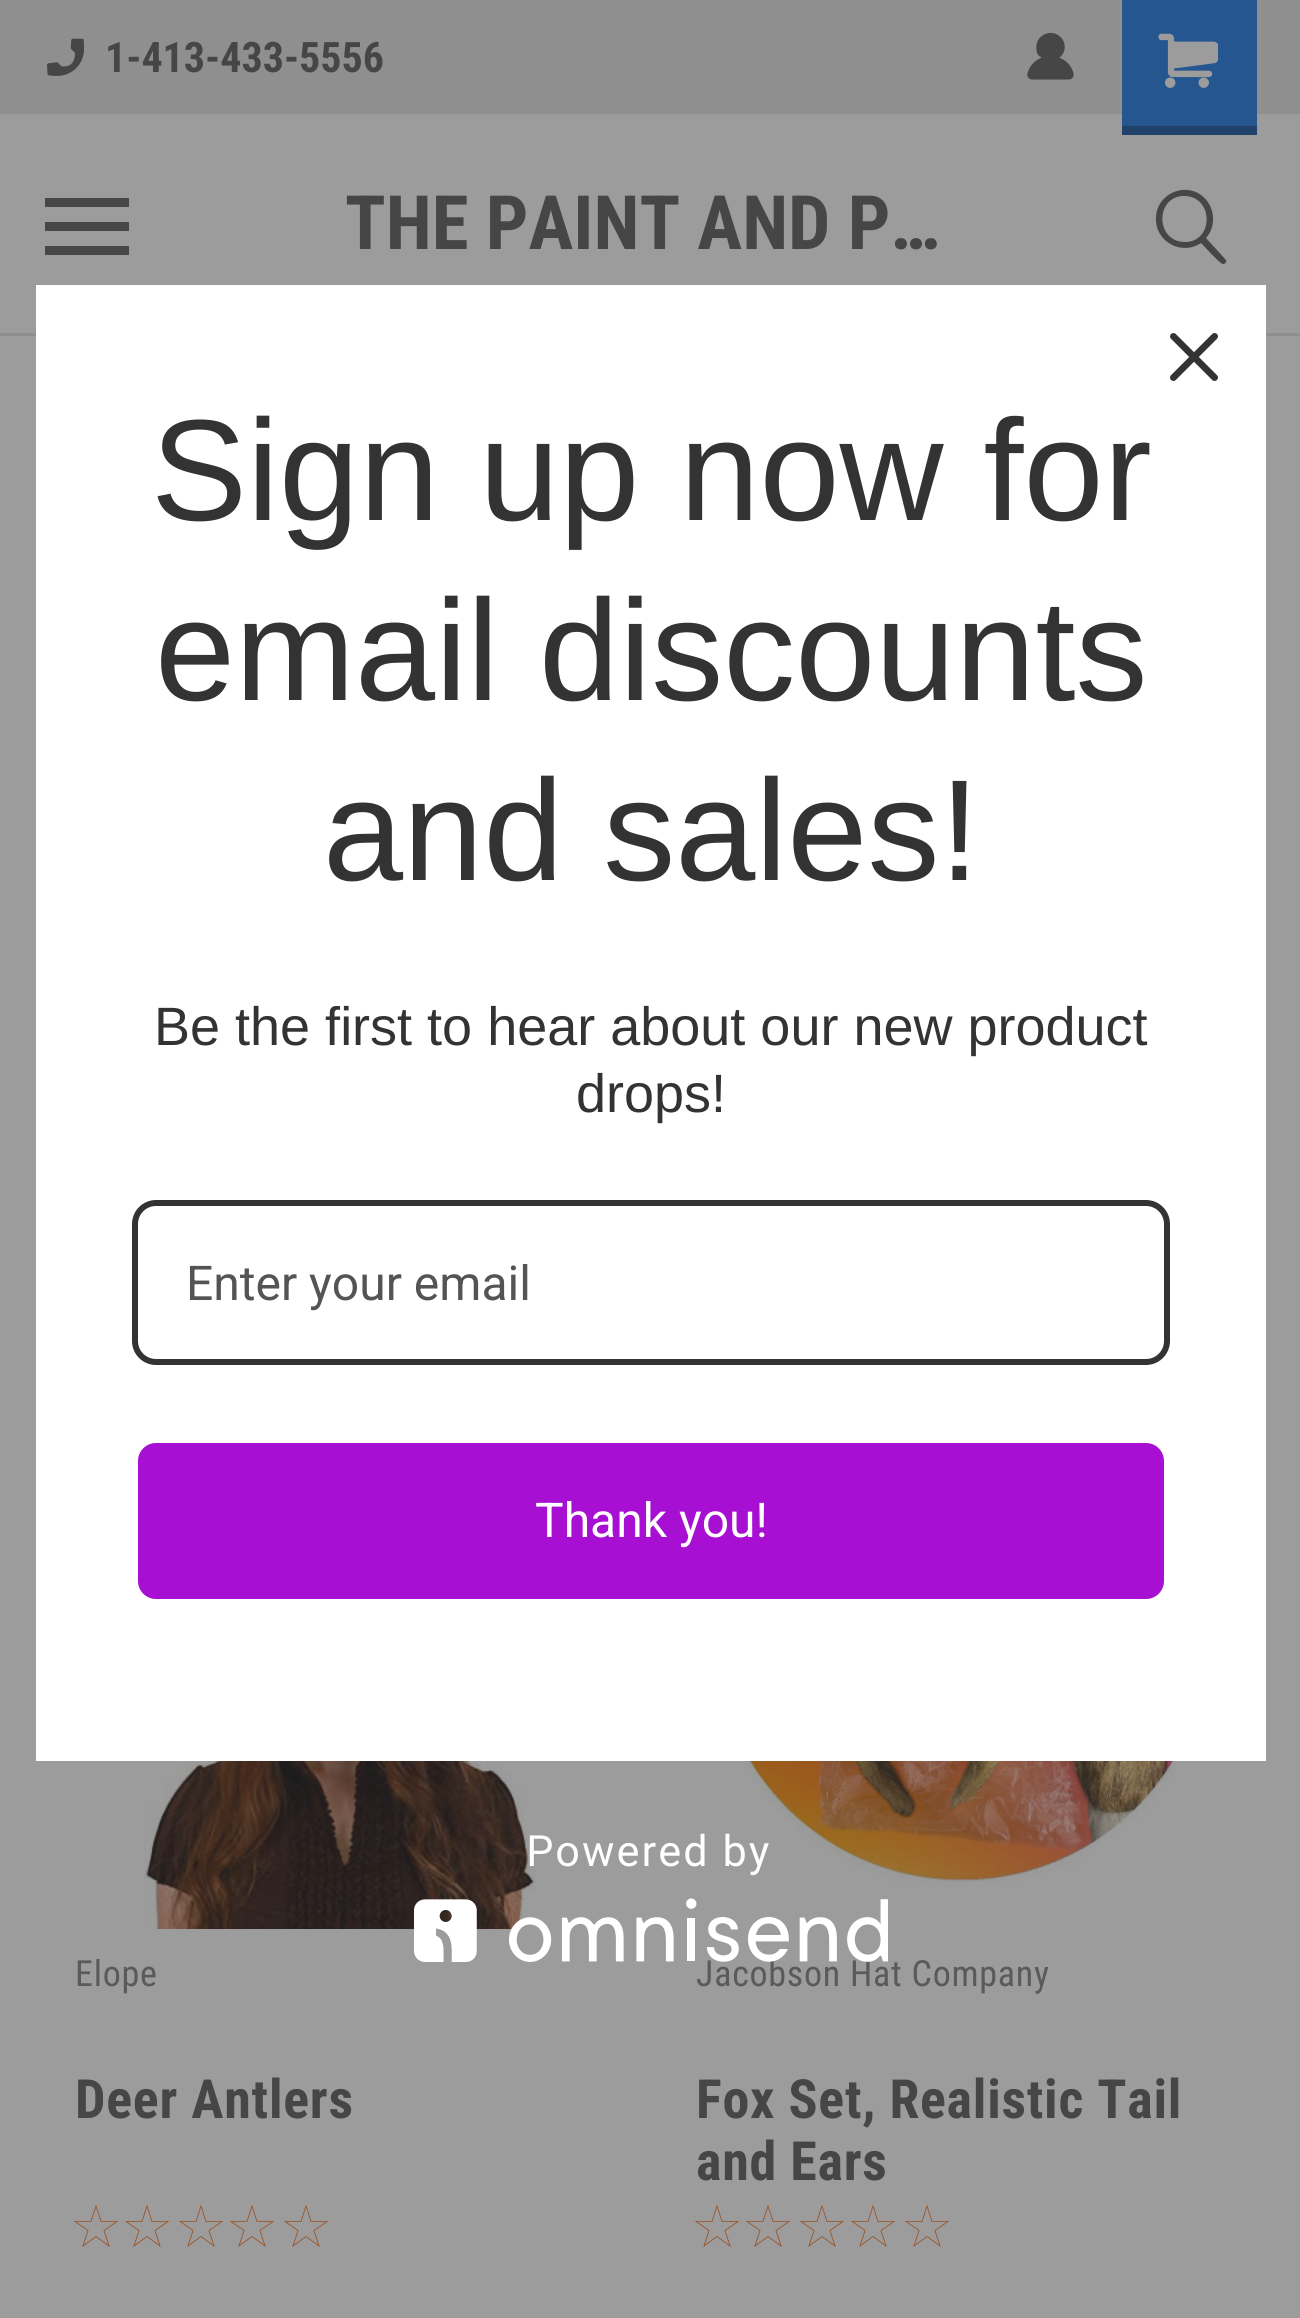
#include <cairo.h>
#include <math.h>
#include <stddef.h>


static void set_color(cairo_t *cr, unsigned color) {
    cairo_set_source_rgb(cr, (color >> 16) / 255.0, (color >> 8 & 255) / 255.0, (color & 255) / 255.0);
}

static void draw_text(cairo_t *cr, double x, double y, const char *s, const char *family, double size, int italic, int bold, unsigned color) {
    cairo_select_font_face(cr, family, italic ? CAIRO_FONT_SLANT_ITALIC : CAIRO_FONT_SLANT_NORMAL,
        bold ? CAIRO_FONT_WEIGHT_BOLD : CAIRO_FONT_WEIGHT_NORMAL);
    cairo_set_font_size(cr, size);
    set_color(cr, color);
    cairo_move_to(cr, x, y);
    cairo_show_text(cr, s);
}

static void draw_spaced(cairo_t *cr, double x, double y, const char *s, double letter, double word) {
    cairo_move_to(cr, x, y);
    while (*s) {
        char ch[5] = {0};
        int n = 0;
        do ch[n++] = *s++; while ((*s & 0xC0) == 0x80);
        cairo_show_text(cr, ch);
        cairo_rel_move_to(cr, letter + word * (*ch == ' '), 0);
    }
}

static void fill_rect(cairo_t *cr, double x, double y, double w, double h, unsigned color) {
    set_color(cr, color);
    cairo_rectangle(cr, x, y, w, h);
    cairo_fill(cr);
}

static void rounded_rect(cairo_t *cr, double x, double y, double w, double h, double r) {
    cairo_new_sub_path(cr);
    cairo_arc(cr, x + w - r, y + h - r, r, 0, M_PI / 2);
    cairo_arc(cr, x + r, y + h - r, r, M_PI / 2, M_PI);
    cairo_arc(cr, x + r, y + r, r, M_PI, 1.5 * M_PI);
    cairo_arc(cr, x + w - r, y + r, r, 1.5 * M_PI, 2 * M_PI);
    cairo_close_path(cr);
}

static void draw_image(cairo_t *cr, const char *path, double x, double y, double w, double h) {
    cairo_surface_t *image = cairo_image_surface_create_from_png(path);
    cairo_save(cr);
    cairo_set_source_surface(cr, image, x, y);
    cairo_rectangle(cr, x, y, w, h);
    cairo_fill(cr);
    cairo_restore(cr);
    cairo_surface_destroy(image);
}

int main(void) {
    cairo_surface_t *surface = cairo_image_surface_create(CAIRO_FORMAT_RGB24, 1300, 2318);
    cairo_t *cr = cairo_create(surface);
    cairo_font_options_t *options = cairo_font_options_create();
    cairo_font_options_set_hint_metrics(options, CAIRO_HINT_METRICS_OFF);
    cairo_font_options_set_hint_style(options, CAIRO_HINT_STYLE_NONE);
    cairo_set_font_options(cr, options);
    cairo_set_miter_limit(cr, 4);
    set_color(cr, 0x9C9C9C);
    cairo_paint(cr);
    fill_rect(cr, 0, 333, 1300, 3, 0x8F8F8F);
    fill_rect(cr, 0, 0, 1300, 114, 0x8F8F8F);
    draw_image(cr, "assets/img1.png", 47, 38, 37, 38);
    draw_text(cr, 105, 72, "1-413-433-5556", "Roboto Condensed", 42, 0, 1, 0x464646);
    draw_image(cr, "assets/img2.png", 1027, 33, 47, 47);
    fill_rect(cr, 1122, 0, 135, 126, 0x26568F);
    fill_rect(cr, 1122, 126, 135, 9, 0x204169);
    draw_image(cr, "assets/img3.png", 1158, 33, 60, 55);
    fill_rect(cr, 45, 222, 84, 9, 0x464646);
    fill_rect(cr, 45, 198, 84, 9, 0x464646);
    fill_rect(cr, 45, 246, 84, 9, 0x464646);
    draw_text(cr, 345, 249, "THE PAINT AND P…", "Roboto Condensed", 75, 0, 1, 0x464646);
    cairo_new_path(cr);
    cairo_move_to(cr, 1223, 264);
    cairo_curve_to(cr, 1220, 264, 1204, 246, 1201, 243);
    cairo_curve_to(cr, 1182, 256, 1155, 242, 1156, 218);
    cairo_curve_to(cr, 1156, 195, 1183, 182, 1201, 195);
    cairo_curve_to(cr, 1215, 205, 1217, 226, 1206, 238);
    cairo_line_to(cr, 1226, 260);
    cairo_curve_to(cr, 1227, 262, 1225, 264, 1223, 264);
    cairo_close_path(cr);
    cairo_move_to(cr, 1184, 196);
    cairo_curve_to(cr, 1155, 196, 1155, 242, 1185, 242);
    cairo_curve_to(cr, 1214, 242, 1214, 196, 1184, 196);
    cairo_close_path(cr);
    cairo_fill(cr);
    fill_rect(cr, 36, 285, 1230, 1476, 0xFFFFFF);
    draw_image(cr, "assets/img4.png", 1170, 333, 48, 48);
    draw_text(cr, 151, 520, "Sign up now for", "Liberation Sans", 144, 0, 0, 0x333333);
    draw_text(cr, 155, 700, "email discounts", "Liberation Sans", 144, 0, 0, 0x333333);
    draw_text(cr, 323, 880, "and sales!", "Liberation Sans", 144, 0, 0, 0x333333);
    draw_text(cr, 154, 1045, "Be the first to hear about our new product", "Liberation Sans", 54, 0, 0, 0x333333);
    draw_text(cr, 576, 1112, "drops!", "Liberation Sans", 54, 0, 0, 0x333333);
    rounded_rect(cr, 135, 1203, 1032, 159, 21);
    cairo_set_line_width(cr, 6);
    cairo_stroke(cr);
    draw_text(cr, 186, 1300, "Enter your email", "Roboto", 48, 0, 0, 0x545454);
    set_color(cr, 0xA70FD3);
    rounded_rect(cr, 135, 1440, 1032, 162, 21);
    cairo_fill_preserve(cr);
    set_color(cr, 0xFFFFFF);
    cairo_stroke(cr);
    draw_text(cr, 535, 1537, "Thank you!", "Roboto", 48, 0, 0, 0xFFFFFF);
    draw_image(cr, "assets/img6.png", 144, 1761, 393, 168);
    draw_image(cr, "assets/img7.png", 711, 1761, 503, 125);
    cairo_select_font_face(cr, "Roboto Condensed", CAIRO_FONT_SLANT_NORMAL, CAIRO_FONT_WEIGHT_NORMAL);
    cairo_set_font_size(cr, 36);
    set_color(cr, 0x5A5A5A);
    draw_spaced(cr, 696, 1986, "Jacobson Hat Company", 0.75, 0);
    draw_image(cr, "assets/img5.png", 414, 1833, 474, 129);
    draw_spaced(cr, 75, 1986, "Elope", 0.75, 0);
    cairo_select_font_face(cr, "Roboto Condensed", CAIRO_FONT_SLANT_NORMAL, CAIRO_FONT_WEIGHT_BOLD);
    cairo_set_font_size(cr, 54);
    set_color(cr, 0x464646);
    draw_spaced(cr, 75, 2118, "Deer Antlers", 0.75, 0);
    cairo_new_path(cr);
    cairo_move_to(cr, 96, 2206);
    cairo_line_to(cr, 101, 2221.5);
    cairo_line_to(cr, 117, 2221.5);
    cairo_line_to(cr, 104, 2230.5);
    cairo_line_to(cr, 109, 2246);
    cairo_line_to(cr, 96, 2236.5);
    cairo_line_to(cr, 83, 2246);
    cairo_line_to(cr, 88, 2230.5);
    cairo_line_to(cr, 75, 2221.5);
    cairo_line_to(cr, 91, 2221.5);
    cairo_close_path(cr);
    set_color(cr, 0x9A4E1E);
    cairo_set_line_width(cr, 0.8);
    cairo_stroke(cr);
    cairo_new_path(cr);
    cairo_move_to(cr, 147, 2206);
    cairo_line_to(cr, 152, 2221.5);
    cairo_line_to(cr, 168, 2221.5);
    cairo_line_to(cr, 155, 2230.5);
    cairo_line_to(cr, 160, 2246);
    cairo_line_to(cr, 147, 2236.5);
    cairo_line_to(cr, 134, 2246);
    cairo_line_to(cr, 139, 2230.5);
    cairo_line_to(cr, 126, 2221.5);
    cairo_line_to(cr, 142, 2221.5);
    cairo_close_path(cr);
    cairo_stroke(cr);
    cairo_new_path(cr);
    cairo_move_to(cr, 201, 2206);
    cairo_line_to(cr, 206, 2221.5);
    cairo_line_to(cr, 222, 2221.5);
    cairo_line_to(cr, 209, 2230.5);
    cairo_line_to(cr, 214, 2246);
    cairo_line_to(cr, 201, 2236.5);
    cairo_line_to(cr, 188, 2246);
    cairo_line_to(cr, 193, 2230.5);
    cairo_line_to(cr, 180, 2221.5);
    cairo_line_to(cr, 196, 2221.5);
    cairo_close_path(cr);
    cairo_stroke(cr);
    cairo_new_path(cr);
    cairo_move_to(cr, 252, 2206);
    cairo_line_to(cr, 257, 2221.5);
    cairo_line_to(cr, 273, 2221.5);
    cairo_line_to(cr, 260, 2230.5);
    cairo_line_to(cr, 265, 2246);
    cairo_line_to(cr, 252, 2236.5);
    cairo_line_to(cr, 239, 2246);
    cairo_line_to(cr, 244, 2230.5);
    cairo_line_to(cr, 231, 2221.5);
    cairo_line_to(cr, 247, 2221.5);
    cairo_close_path(cr);
    cairo_stroke(cr);
    cairo_new_path(cr);
    cairo_move_to(cr, 306, 2206);
    cairo_line_to(cr, 311, 2221.5);
    cairo_line_to(cr, 327, 2221.5);
    cairo_line_to(cr, 314, 2230.5);
    cairo_line_to(cr, 319, 2246);
    cairo_line_to(cr, 306, 2236.5);
    cairo_line_to(cr, 293, 2246);
    cairo_line_to(cr, 298, 2230.5);
    cairo_line_to(cr, 285, 2221.5);
    cairo_line_to(cr, 301, 2221.5);
    cairo_close_path(cr);
    cairo_stroke(cr);
    set_color(cr, 0x464646);
    draw_spaced(cr, 696, 2118, "Fox Set, Realistic Tail", 0.75, 0);
    draw_spaced(cr, 696, 2180, "and Ears", 0.75, 0);
    cairo_new_path(cr);
    cairo_move_to(cr, 717, 2206);
    cairo_line_to(cr, 722, 2221.5);
    cairo_line_to(cr, 738, 2221.5);
    cairo_line_to(cr, 725, 2230.5);
    cairo_line_to(cr, 730, 2246);
    cairo_line_to(cr, 717, 2236.5);
    cairo_line_to(cr, 704, 2246);
    cairo_line_to(cr, 709, 2230.5);
    cairo_line_to(cr, 696, 2221.5);
    cairo_line_to(cr, 712, 2221.5);
    cairo_close_path(cr);
    set_color(cr, 0x9A4E1E);
    cairo_stroke(cr);
    cairo_new_path(cr);
    cairo_move_to(cr, 768, 2206);
    cairo_line_to(cr, 773, 2221.5);
    cairo_line_to(cr, 789, 2221.5);
    cairo_line_to(cr, 776, 2230.5);
    cairo_line_to(cr, 781, 2246);
    cairo_line_to(cr, 768, 2236.5);
    cairo_line_to(cr, 755, 2246);
    cairo_line_to(cr, 760, 2230.5);
    cairo_line_to(cr, 747, 2221.5);
    cairo_line_to(cr, 763, 2221.5);
    cairo_close_path(cr);
    cairo_stroke(cr);
    cairo_new_path(cr);
    cairo_move_to(cr, 822, 2206);
    cairo_line_to(cr, 827, 2221.5);
    cairo_line_to(cr, 843, 2221.5);
    cairo_line_to(cr, 830, 2230.5);
    cairo_line_to(cr, 835, 2246);
    cairo_line_to(cr, 822, 2236.5);
    cairo_line_to(cr, 809, 2246);
    cairo_line_to(cr, 814, 2230.5);
    cairo_line_to(cr, 801, 2221.5);
    cairo_line_to(cr, 817, 2221.5);
    cairo_close_path(cr);
    cairo_stroke(cr);
    cairo_new_path(cr);
    cairo_move_to(cr, 873, 2206);
    cairo_line_to(cr, 878, 2221.5);
    cairo_line_to(cr, 894, 2221.5);
    cairo_line_to(cr, 881, 2230.5);
    cairo_line_to(cr, 886, 2246);
    cairo_line_to(cr, 873, 2236.5);
    cairo_line_to(cr, 860, 2246);
    cairo_line_to(cr, 865, 2230.5);
    cairo_line_to(cr, 852, 2221.5);
    cairo_line_to(cr, 868, 2221.5);
    cairo_close_path(cr);
    cairo_stroke(cr);
    cairo_new_path(cr);
    cairo_move_to(cr, 927, 2206);
    cairo_line_to(cr, 932, 2221.5);
    cairo_line_to(cr, 948, 2221.5);
    cairo_line_to(cr, 935, 2230.5);
    cairo_line_to(cr, 940, 2246);
    cairo_line_to(cr, 927, 2236.5);
    cairo_line_to(cr, 914, 2246);
    cairo_line_to(cr, 919, 2230.5);
    cairo_line_to(cr, 906, 2221.5);
    cairo_line_to(cr, 922, 2221.5);
    cairo_close_path(cr);
    cairo_stroke(cr);
    cairo_surface_write_to_png(surface, "output.png");
    cairo_font_options_destroy(options);
    cairo_destroy(cr);
    cairo_surface_destroy(surface);
    return 0;
}
